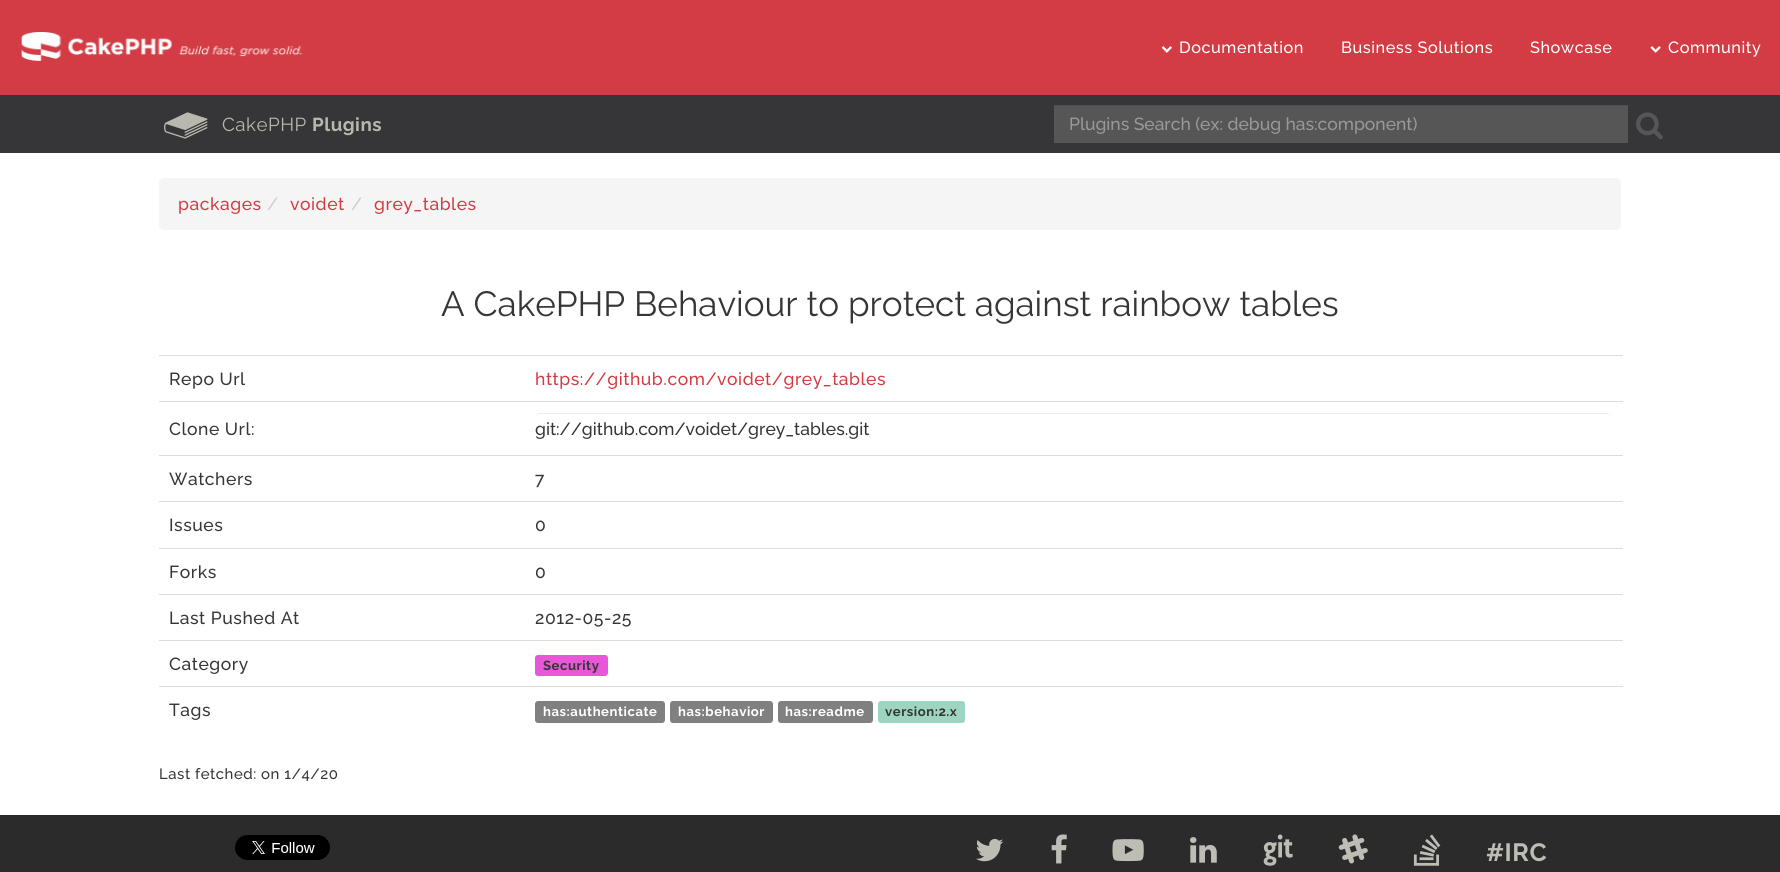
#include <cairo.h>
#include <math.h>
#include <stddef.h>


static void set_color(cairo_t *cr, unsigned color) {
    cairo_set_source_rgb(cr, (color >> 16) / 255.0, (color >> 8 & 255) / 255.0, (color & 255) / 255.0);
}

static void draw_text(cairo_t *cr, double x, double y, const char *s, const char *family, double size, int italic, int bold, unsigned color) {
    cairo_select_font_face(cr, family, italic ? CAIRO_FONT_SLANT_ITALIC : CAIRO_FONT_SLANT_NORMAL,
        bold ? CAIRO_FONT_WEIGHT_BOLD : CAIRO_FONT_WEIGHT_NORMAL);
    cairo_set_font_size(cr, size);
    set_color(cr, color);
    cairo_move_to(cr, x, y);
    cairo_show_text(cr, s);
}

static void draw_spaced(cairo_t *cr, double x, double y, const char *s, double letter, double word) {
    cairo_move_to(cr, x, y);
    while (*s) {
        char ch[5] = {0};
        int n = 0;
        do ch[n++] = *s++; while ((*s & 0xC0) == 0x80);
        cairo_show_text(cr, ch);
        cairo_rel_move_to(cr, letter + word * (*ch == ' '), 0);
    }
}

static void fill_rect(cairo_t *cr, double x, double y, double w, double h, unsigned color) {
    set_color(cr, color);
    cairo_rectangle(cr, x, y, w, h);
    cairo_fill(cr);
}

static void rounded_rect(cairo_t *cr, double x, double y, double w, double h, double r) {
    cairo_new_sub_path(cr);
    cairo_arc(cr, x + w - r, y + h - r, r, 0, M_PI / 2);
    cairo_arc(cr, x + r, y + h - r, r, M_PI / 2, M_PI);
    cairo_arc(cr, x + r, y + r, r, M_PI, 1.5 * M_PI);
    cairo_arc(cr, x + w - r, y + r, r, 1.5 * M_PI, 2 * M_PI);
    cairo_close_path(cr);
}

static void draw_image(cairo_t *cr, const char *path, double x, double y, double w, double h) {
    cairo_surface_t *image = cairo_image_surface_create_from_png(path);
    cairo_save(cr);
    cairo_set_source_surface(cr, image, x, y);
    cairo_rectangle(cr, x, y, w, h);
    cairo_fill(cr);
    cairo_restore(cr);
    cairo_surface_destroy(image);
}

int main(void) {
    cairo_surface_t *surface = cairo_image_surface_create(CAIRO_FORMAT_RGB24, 1780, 872);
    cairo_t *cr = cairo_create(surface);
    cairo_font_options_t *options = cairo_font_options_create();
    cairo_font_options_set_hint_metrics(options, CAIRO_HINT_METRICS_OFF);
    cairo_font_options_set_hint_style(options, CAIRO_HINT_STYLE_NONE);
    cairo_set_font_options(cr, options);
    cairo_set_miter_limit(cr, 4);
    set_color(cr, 0xFFFFFF);
    cairo_paint(cr);
    fill_rect(cr, 0, 0, 1780, 95, 0xD33C44);
    draw_image(cr, "assets/img1.png", 21, 32, 281, 29);
    draw_image(cr, "assets/img2.png", 1161, 46, 11, 7);
    cairo_select_font_face(cr, "Raleway Medium", CAIRO_FONT_SLANT_NORMAL, CAIRO_FONT_WEIGHT_NORMAL);
    cairo_set_font_size(cr, 16.25);
    set_color(cr, 0xFFFFFF);
    draw_spaced(cr, 1179, 53, "Documentation", 0.55, 0);
    draw_spaced(cr, 1341, 53, "Business Solutions", 0.55, 0);
    draw_spaced(cr, 1530, 53, "Showcase", 0.55, 0);
    draw_image(cr, "assets/img3.png", 1650, 46, 11, 7);
    draw_spaced(cr, 1668, 53, "Community", 0.55, 0);
    fill_rect(cr, 0, 95, 1780, 58, 0x363638);
    cairo_select_font_face(cr, "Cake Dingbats", CAIRO_FONT_SLANT_NORMAL, CAIRO_FONT_WEIGHT_NORMAL);
    cairo_set_font_size(cr, 32);
    set_color(cr, 0xB8B8AE);
    draw_spaced(cr, 164, 136, "B", 0.5, 0);
    cairo_select_font_face(cr, "Raleway", CAIRO_FONT_SLANT_NORMAL, CAIRO_FONT_WEIGHT_NORMAL);
    cairo_set_font_size(cr, 18.75);
    draw_spaced(cr, 222, 131, "CakePHP", 0.5, 0);
    cairo_select_font_face(cr, "Raleway", CAIRO_FONT_SLANT_NORMAL, CAIRO_FONT_WEIGHT_BOLD);
    draw_spaced(cr, 312, 131, "Plugins", 0.5, 0);
    fill_rect(cr, 1054, 106, 574, 37, 0x565656);
    fill_rect(cr, 1054, 105, 574, 1, 0x505050);
    draw_text(cr, 1069, 130, "Plugins Search (ex: debug has:component)", "Raleway Medium", 17.5, 0, 0, 0x999999);
    draw_text(cr, 1636, 136, "A", "Cake Dingbats", 32, 0, 0, 0x565656);
    set_color(cr, 0xF5F5F5);
    rounded_rect(cr, 159, 178, 1462, 52, 5);
    cairo_fill(cr);
    cairo_select_font_face(cr, "Raleway Medium", CAIRO_FONT_SLANT_NORMAL, CAIRO_FONT_WEIGHT_NORMAL);
    cairo_set_font_size(cr, 17.5);
    set_color(cr, 0xD33C44);
    draw_spaced(cr, 178, 210, "packages", 0.55, 0);
    set_color(cr, 0xCCCCCC);
    draw_spaced(cr, 267, 210, "/", 0.55, 0);
    set_color(cr, 0xD33C44);
    draw_spaced(cr, 290, 210, "voidet", 0.55, 0);
    set_color(cr, 0xCCCCCC);
    draw_spaced(cr, 351, 210, "/", 0.55, 0);
    set_color(cr, 0xD33C44);
    draw_spaced(cr, 374, 210, "grey_tables", 0.55, 0);
    draw_text(cr, 441, 316, "A CakePHP Behaviour to protect against rainbow tables", "Raleway", 35, 0, 0, 0x363637);
    cairo_select_font_face(cr, "Raleway Medium", CAIRO_FONT_SLANT_NORMAL, CAIRO_FONT_WEIGHT_NORMAL);
    cairo_set_font_size(cr, 17.5);
    draw_spaced(cr, 169, 385, "Repo Url", 0.55, 0);
    fill_rect(cr, 159, 355, 1464, 1, 0xDDDDDD);
    set_color(cr, 0xD33C44);
    draw_spaced(cr, 535, 385, "https://github.com/voidet/grey_tables", 0.55, 0);
    set_color(cr, 0x363637);
    draw_spaced(cr, 169, 435, "Clone Url:", 0.55, 0);
    fill_rect(cr, 159, 401, 1464, 1, 0xDDDDDD);
    set_color(cr, 0xECECEC);
    cairo_new_path(cr);
    cairo_move_to(cr, 540, 414);
    cairo_line_to(cr, 1606, 414);
    cairo_curve_to(cr, 1609, 414, 1611, 416, 1611, 419);
    cairo_curve_to(cr, 1611, 416, 1609, 413, 1606, 413);
    cairo_line_to(cr, 540, 413);
    cairo_curve_to(cr, 537, 413, 535, 416, 535, 419);
    cairo_curve_to(cr, 535, 416, 537, 414, 540, 414);
    cairo_close_path(cr);
    cairo_fill(cr);
    draw_text(cr, 535, 435, "git://github.com/voidet/grey_tables.git", "Raleway Medium", 17.5, 0, 0, 0x363637);
    draw_spaced(cr, 169, 485, "Watchers", 0.55, 0);
    fill_rect(cr, 159, 455, 1464, 1, 0xDDDDDD);
    set_color(cr, 0x363637);
    draw_spaced(cr, 535, 485, "7", 0.55, 0);
    draw_spaced(cr, 169, 531, "Issues", 0.55, 0);
    fill_rect(cr, 159, 501, 1464, 1, 0xDDDDDD);
    set_color(cr, 0x363637);
    draw_spaced(cr, 535, 531, "0", 0.55, 0);
    draw_spaced(cr, 169, 578, "Forks", 0.55, 0);
    fill_rect(cr, 159, 548, 1464, 1, 0xDDDDDD);
    set_color(cr, 0x363637);
    draw_spaced(cr, 535, 578, "0", 0.55, 0);
    draw_spaced(cr, 169, 624, "Last Pushed At", 0.55, 0);
    fill_rect(cr, 159, 594, 1464, 1, 0xDDDDDD);
    set_color(cr, 0x363637);
    draw_spaced(cr, 535, 624, "2012-05-25", 0.55, 0);
    draw_spaced(cr, 169, 670, "Category", 0.55, 0);
    fill_rect(cr, 159, 640, 1464, 1, 0xDDDDDD);
    set_color(cr, 0xE857D8);
    rounded_rect(cr, 535, 655, 73, 21, 3);
    cairo_fill(cr);
    cairo_select_font_face(cr, "Raleway", CAIRO_FONT_SLANT_NORMAL, CAIRO_FONT_WEIGHT_BOLD);
    cairo_set_font_size(cr, 13.1);
    set_color(cr, 0x363637);
    draw_spaced(cr, 543, 670, "Security", 0.55, 0);
    cairo_select_font_face(cr, "Raleway Medium", CAIRO_FONT_SLANT_NORMAL, CAIRO_FONT_WEIGHT_NORMAL);
    cairo_set_font_size(cr, 17.5);
    draw_spaced(cr, 169, 716, "Tags", 0.55, 0);
    fill_rect(cr, 159, 686, 1464, 1, 0xDDDDDD);
    set_color(cr, 0x808080);
    rounded_rect(cr, 535, 701, 130, 22, 3);
    cairo_fill(cr);
    cairo_select_font_face(cr, "Raleway", CAIRO_FONT_SLANT_NORMAL, CAIRO_FONT_WEIGHT_BOLD);
    cairo_set_font_size(cr, 13.1);
    set_color(cr, 0xFFFFFF);
    draw_spaced(cr, 543, 716, "has:authenticate", 0.55, 0);
    set_color(cr, 0x808080);
    rounded_rect(cr, 670, 701, 103, 22, 3);
    cairo_fill(cr);
    set_color(cr, 0xFFFFFF);
    draw_spaced(cr, 678, 716, "has:behavior", 0.55, 0);
    set_color(cr, 0x808080);
    rounded_rect(cr, 778, 701, 95, 22, 3);
    cairo_fill(cr);
    set_color(cr, 0xFFFFFF);
    draw_spaced(cr, 785, 716, "has:readme", 0.55, 0);
    set_color(cr, 0x9DD5C0);
    rounded_rect(cr, 878, 701, 87, 22, 3);
    cairo_fill(cr);
    set_color(cr, 0x363637);
    draw_spaced(cr, 885, 716, "version:2.x", 0.55, 0);
    cairo_select_font_face(cr, "Raleway Medium", CAIRO_FONT_SLANT_NORMAL, CAIRO_FONT_WEIGHT_NORMAL);
    cairo_set_font_size(cr, 14.9);
    draw_spaced(cr, 159, 779, "Last fetched: on 1/4/20", 0.55, 0);
    fill_rect(cr, 0, 815, 1780, 57, 0x2B2B2B);
    draw_image(cr, "assets/img4.png", 235, 835, 95, 25);
    draw_image(cr, "assets/img5.png", 976, 838, 28, 24);
    draw_image(cr, "assets/img6.png", 1051, 834, 16, 30);
    draw_image(cr, "assets/img7.png", 1112, 839, 32, 23);
    draw_image(cr, "assets/img8.png", 1190, 837, 27, 26);
    draw_image(cr, "assets/img9.png", 1263, 834, 30, 32);
    draw_image(cr, "assets/img10.png", 1338, 834, 30, 30);
    draw_image(cr, "assets/img11.png", 1413, 834, 28, 32);
    cairo_select_font_face(cr, "Raleway", CAIRO_FONT_SLANT_NORMAL, CAIRO_FONT_WEIGHT_BOLD);
    cairo_set_font_size(cr, 25);
    set_color(cr, 0xBDBDB5);
    draw_spaced(cr, 1486, 861, "#IRC", 0.55, 0);
    cairo_surface_write_to_png(surface, "output.png");
    cairo_font_options_destroy(options);
    cairo_destroy(cr);
    cairo_surface_destroy(surface);
    return 0;
}
